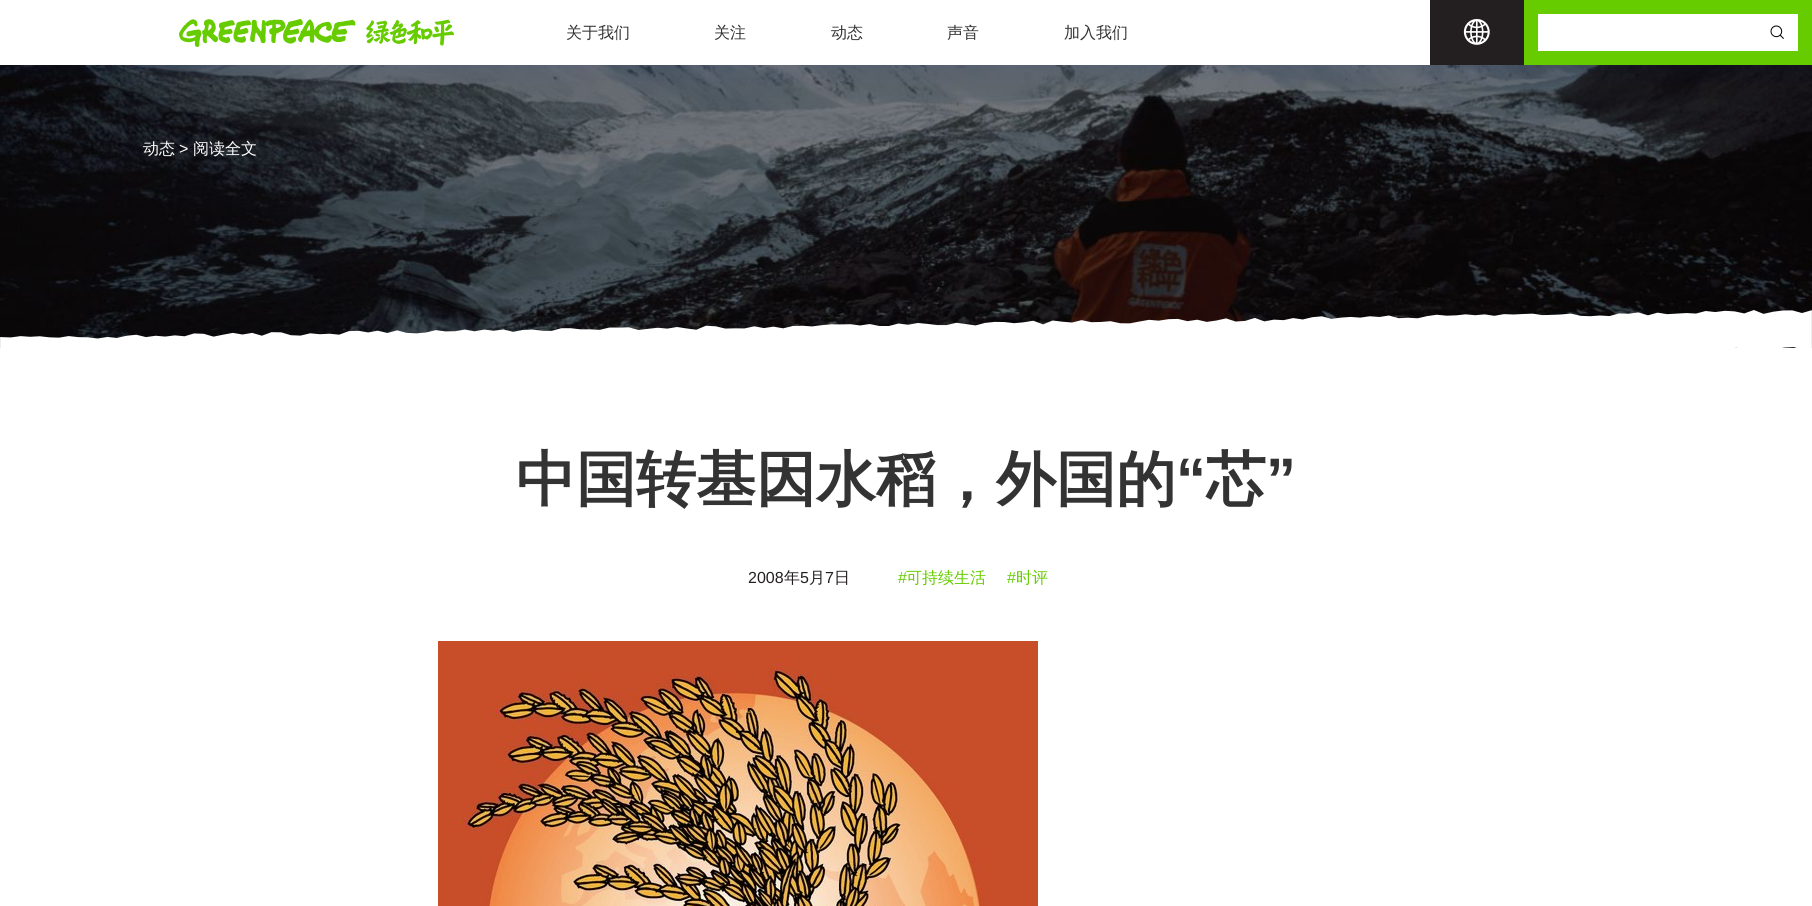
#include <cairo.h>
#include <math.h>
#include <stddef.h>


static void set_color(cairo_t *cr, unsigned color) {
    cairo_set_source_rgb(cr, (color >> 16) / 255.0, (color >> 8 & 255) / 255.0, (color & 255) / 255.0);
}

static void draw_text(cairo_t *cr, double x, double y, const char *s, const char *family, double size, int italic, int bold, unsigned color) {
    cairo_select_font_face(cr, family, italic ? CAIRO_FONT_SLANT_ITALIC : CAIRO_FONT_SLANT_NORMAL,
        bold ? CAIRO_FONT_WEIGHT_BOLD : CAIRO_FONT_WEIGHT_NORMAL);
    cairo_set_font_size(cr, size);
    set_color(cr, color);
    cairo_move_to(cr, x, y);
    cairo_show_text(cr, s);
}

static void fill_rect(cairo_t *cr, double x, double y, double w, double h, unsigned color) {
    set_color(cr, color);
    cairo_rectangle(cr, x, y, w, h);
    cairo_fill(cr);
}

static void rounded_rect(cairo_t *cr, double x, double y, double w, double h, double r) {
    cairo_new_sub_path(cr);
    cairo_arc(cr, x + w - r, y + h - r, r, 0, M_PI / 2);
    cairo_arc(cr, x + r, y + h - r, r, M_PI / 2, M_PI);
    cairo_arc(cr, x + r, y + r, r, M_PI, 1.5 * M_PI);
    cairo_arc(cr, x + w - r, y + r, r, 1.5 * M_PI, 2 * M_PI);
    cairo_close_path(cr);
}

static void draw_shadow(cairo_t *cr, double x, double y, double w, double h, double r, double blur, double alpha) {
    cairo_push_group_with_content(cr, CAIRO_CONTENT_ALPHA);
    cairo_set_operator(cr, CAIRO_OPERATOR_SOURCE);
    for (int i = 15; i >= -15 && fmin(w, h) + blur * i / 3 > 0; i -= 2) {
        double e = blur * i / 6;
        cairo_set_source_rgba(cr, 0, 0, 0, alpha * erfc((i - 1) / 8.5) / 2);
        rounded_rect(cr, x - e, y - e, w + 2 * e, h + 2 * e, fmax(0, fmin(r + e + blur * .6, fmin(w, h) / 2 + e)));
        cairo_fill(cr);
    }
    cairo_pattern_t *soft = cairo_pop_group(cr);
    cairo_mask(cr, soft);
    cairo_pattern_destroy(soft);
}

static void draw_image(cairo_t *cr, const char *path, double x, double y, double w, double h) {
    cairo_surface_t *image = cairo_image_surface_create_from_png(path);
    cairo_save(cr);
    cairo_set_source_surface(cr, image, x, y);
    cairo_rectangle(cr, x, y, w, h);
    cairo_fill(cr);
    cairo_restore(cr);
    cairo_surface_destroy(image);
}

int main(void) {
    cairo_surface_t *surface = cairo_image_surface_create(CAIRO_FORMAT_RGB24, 1812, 906);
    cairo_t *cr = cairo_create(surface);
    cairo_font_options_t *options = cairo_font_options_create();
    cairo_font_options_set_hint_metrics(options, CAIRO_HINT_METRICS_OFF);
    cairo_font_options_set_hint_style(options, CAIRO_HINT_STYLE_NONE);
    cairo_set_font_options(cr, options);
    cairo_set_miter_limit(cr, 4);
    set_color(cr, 0xFFFFFF);
    cairo_paint(cr);
    draw_image(cr, "assets/img4.png", 0, 65, 1812, 283);
    set_color(cr, 0x0C2AC3);
    draw_shadow(cr, 0, 0, 1812, 65, 0, 10, 0.1);
    fill_rect(cr, 0, 0, 1430, 65, 0xFFFFFF);
    draw_image(cr, "assets/img1.png", 179, 19, 275, 28);
    draw_text(cr, 566, 38, "关于我们", "WenQuanYi Zen Hei Medium", 16, 0, 0, 0x333333);
    draw_text(cr, 714, 38, "关注", "WenQuanYi Zen Hei Medium", 16, 0, 0, 0x333333);
    draw_text(cr, 831, 38, "动态", "WenQuanYi Zen Hei Medium", 16, 0, 0, 0x333333);
    draw_text(cr, 947, 38, "声音", "WenQuanYi Zen Hei Medium", 16, 0, 0, 0x333333);
    draw_text(cr, 1064, 38, "加入我们", "WenQuanYi Zen Hei Medium", 16, 0, 0, 0x333333);
    fill_rect(cr, 1430, 0, 94, 65, 0x231F20);
    draw_image(cr, "assets/img2.png", 1463, 18, 27, 27);
    fill_rect(cr, 1524, 0, 288, 65, 0x66CC00);
    fill_rect(cr, 1538, 14, 260, 37, 0xFFFFFF);
    draw_image(cr, "assets/img3.png", 1770, 25, 14, 14);
    draw_text(cr, 143, 154, "动态", "WenQuanYi Zen Hei Medium", 16, 0, 0, 0xFFFFFF);
    draw_text(cr, 179, 154, ">", "Liberation Sans", 16, 0, 0, 0xFFFFFF);
    draw_text(cr, 193, 154, "阅读全文", "WenQuanYi Zen Hei Medium", 16, 0, 0, 0xFFFFFF);
    draw_image(cr, "assets/img5.png", 0, 310, 1812, 38);
    draw_text(cr, 516, 500, "中国转基因水稻，外国的", "WenQuanYi Zen Hei", 60, 0, 1, 0x333333);
    draw_text(cr, 1176, 500, "“", "Liberation Sans", 60, 0, 1, 0x333333);
    draw_text(cr, 1206, 500, "芯", "WenQuanYi Zen Hei", 60, 0, 1, 0x333333);
    draw_text(cr, 1266, 500, "”", "Liberation Sans", 60, 0, 1, 0x333333);
    draw_text(cr, 748, 583, "2008", "Liberation Sans", 16, 0, 0, 0x231F20);
    draw_text(cr, 784, 583, "年", "WenQuanYi Zen Hei Medium", 16, 0, 0, 0x231F20);
    draw_text(cr, 800, 583, "5", "Liberation Sans", 16, 0, 0, 0x231F20);
    draw_text(cr, 809, 583, "月", "WenQuanYi Zen Hei Medium", 16, 0, 0, 0x231F20);
    draw_text(cr, 825, 583, "7", "Liberation Sans", 16, 0, 0, 0x231F20);
    draw_text(cr, 834, 583, "日", "WenQuanYi Zen Hei Medium", 16, 0, 0, 0x231F20);
    draw_text(cr, 898, 583, "#", "Liberation Sans", 16, 0, 0, 0x66CC00);
    draw_text(cr, 906, 583, "可持续生活", "WenQuanYi Zen Hei Medium", 16, 0, 0, 0x66CC00);
    draw_text(cr, 1007, 583, "#", "Liberation Sans", 16, 0, 0, 0x66CC00);
    draw_text(cr, 1016, 583, "时评", "WenQuanYi Zen Hei Medium", 16, 0, 0, 0x66CC00);
    draw_image(cr, "assets/img6.png", 438, 641, 600, 265);
    cairo_surface_write_to_png(surface, "output.png");
    cairo_font_options_destroy(options);
    cairo_destroy(cr);
    cairo_surface_destroy(surface);
    return 0;
}
